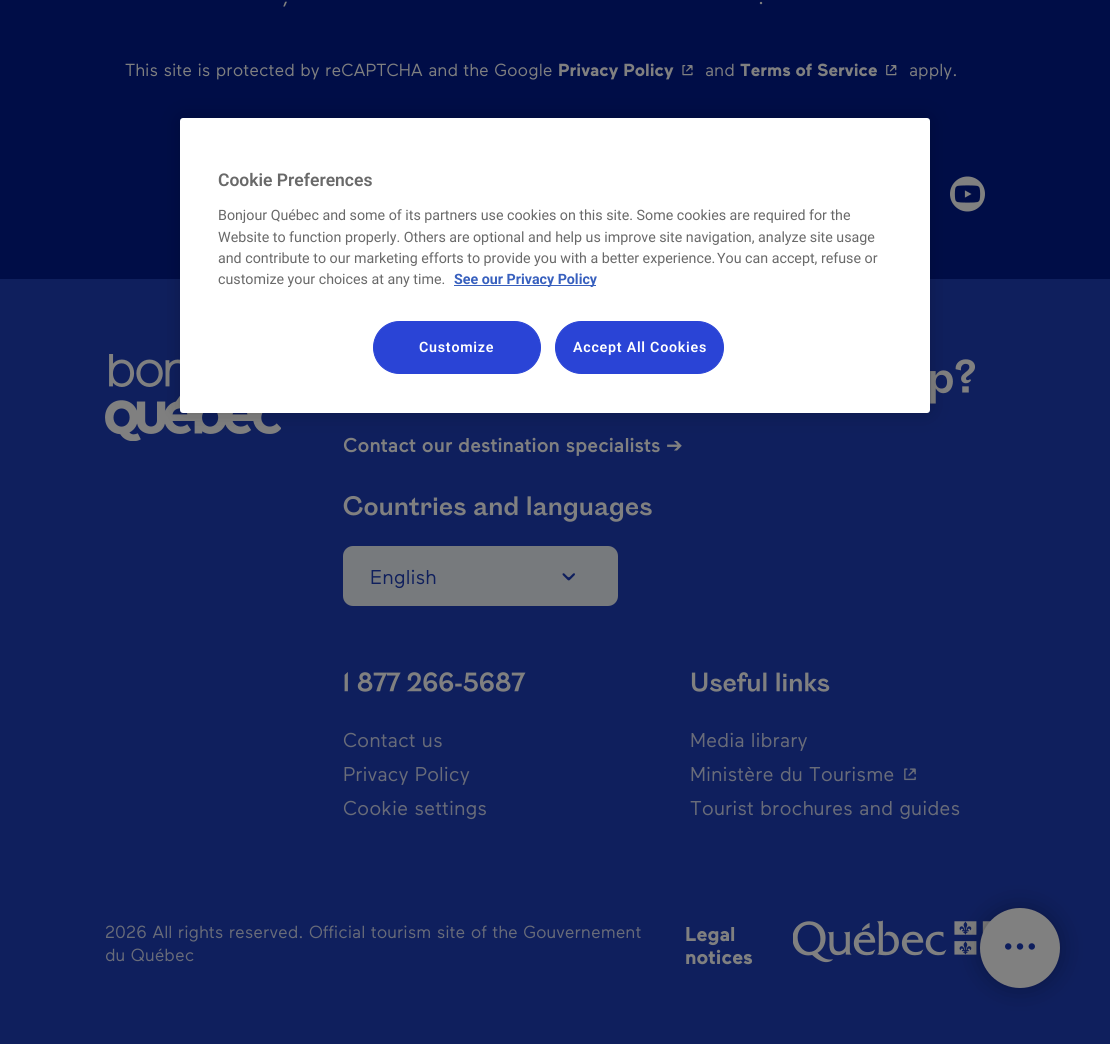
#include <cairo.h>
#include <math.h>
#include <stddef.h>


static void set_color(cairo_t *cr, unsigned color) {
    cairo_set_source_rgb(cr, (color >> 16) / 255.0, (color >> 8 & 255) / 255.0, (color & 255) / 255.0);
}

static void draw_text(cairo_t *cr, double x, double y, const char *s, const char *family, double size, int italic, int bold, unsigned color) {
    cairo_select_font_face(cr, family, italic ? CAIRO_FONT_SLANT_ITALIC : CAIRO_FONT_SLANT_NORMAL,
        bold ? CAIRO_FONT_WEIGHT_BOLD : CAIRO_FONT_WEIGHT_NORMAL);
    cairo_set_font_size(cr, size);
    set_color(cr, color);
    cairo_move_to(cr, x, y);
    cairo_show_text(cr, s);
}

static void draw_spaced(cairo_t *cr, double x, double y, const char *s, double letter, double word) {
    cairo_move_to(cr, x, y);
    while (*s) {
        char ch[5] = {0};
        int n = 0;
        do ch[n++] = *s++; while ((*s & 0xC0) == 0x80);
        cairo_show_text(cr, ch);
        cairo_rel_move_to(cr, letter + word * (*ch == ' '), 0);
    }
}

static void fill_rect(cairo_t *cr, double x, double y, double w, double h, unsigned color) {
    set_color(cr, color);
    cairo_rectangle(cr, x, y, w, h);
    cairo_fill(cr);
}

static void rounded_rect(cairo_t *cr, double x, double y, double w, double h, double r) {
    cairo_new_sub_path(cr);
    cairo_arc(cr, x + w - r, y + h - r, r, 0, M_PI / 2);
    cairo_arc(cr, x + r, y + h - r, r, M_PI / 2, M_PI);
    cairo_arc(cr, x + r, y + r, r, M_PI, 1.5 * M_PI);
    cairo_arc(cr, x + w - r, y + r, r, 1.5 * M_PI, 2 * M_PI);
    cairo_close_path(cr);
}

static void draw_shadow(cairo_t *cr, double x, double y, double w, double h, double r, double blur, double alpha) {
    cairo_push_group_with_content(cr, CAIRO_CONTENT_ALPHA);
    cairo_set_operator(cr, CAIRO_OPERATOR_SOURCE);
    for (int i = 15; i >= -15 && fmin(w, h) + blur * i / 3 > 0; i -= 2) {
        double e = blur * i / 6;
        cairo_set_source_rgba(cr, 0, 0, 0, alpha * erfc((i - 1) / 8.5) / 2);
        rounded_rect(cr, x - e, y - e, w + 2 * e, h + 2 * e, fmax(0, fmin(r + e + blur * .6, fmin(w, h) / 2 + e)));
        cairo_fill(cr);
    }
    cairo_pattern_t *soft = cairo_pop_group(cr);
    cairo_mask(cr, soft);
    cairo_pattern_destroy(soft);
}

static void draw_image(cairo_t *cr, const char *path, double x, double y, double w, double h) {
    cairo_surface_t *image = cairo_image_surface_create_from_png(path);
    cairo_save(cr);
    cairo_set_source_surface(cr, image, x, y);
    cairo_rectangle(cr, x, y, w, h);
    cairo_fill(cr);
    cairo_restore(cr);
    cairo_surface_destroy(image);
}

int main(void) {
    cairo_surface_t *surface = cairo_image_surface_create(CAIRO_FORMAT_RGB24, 1110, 1044);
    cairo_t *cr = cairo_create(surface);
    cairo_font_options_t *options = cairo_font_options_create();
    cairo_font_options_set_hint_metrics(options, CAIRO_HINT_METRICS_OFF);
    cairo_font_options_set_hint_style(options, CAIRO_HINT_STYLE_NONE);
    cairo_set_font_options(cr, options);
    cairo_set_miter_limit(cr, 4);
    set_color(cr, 0x0F1F5D);
    cairo_paint(cr);
    fill_rect(cr, 0, 0, 1110, 279, 0x000D47);
    draw_text(cr, 283, 4, ",", "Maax", 20, 0, 0, 0x808080);
    draw_text(cr, 758, 4, ".", "Maax", 20, 0, 0, 0x808080);
    draw_text(cr, 125, 76, "This site is protected by reCAPTCHA and the Google", "Maax", 17.5, 0, 0, 0x808080);
    draw_text(cr, 558, 76, "Privacy Policy", "Maax", 17.5, 0, 1, 0x808080);
    draw_image(cr, "assets/img1.png", 682, 65, 11, 11);
    draw_text(cr, 705, 76, "and", "Maax", 17.5, 0, 0, 0x808080);
    draw_text(cr, 740, 76, "Terms of Service", "Maax", 17.5, 0, 1, 0x808080);
    draw_image(cr, "assets/img2.png", 886, 65, 11, 11);
    draw_text(cr, 909, 76, "apply.", "Maax", 17.5, 0, 0, 0x808080);
    draw_image(cr, "assets/img3.png", 950, 176, 35, 36);
    draw_image(cr, "assets/img4.png", 105, 354, 176, 87);
    draw_image(cr, "assets/img5.png", 930, 359, 45, 45);
    draw_text(cr, 343, 452, "Contact our destination specialists", "Maax Medium", 20, 0, 0, 0x808080);
    draw_text(cr, 666, 452, "➔", "DejaVu Sans", 20, 0, 0, 0x808080);
    draw_image(cr, "assets/img6.png", 343, 495, 309, 27);
    set_color(cr, 0x777A7D);
    rounded_rect(cr, 344.5, 547.5, 272, 57, 8.5);
    cairo_fill_preserve(cr);
    cairo_set_line_width(cr, 3);
    cairo_stroke(cr);
    draw_text(cr, 370, 584, "English", "Maax", 20, 0, 0, 0x0F1F5D);
    draw_image(cr, "assets/img7.png", 562, 573, 13, 8);
    draw_image(cr, "assets/img8.png", 344, 672, 182, 20);
    draw_text(cr, 343, 747, "Contact us", "Maax", 20, 0, 0, 0x696C79);
    draw_text(cr, 343, 781, "Privacy Policy", "Maax", 20, 0, 0, 0x696C79);
    draw_text(cr, 343, 815, "Cookie settings", "Maax", 20, 0, 0, 0x696C79);
    draw_image(cr, "assets/img9.png", 691, 672, 139, 20);
    draw_text(cr, 690, 747, "Media library", "Maax", 20, 0, 0, 0x696C79);
    draw_text(cr, 690, 781, "Ministère du Tourisme", "Maax", 20, 0, 0, 0x696C79);
    draw_image(cr, "assets/img10.png", 904, 768, 12, 13);
    draw_text(cr, 690, 815, "Tourist brochures and guides", "Maax", 20, 0, 0, 0x696C79);
    draw_text(cr, 105, 938, "2026 All rights reserved. Official tourism site of the Gouvernement", "Maax", 17.5, 0, 0, 0x696C79);
    draw_text(cr, 105, 961, "du Québec", "Maax", 17.5, 0, 0, 0x696C79);
    draw_text(cr, 685, 941, "Legal", "Maax", 20, 0, 1, 0x808080);
    draw_text(cr, 685, 964, "notices", "Maax", 20, 0, 1, 0x808080);
    draw_image(cr, "assets/img11.png", 793, 920, 198, 43);
    set_color(cr, 0x000000);
    draw_shadow(cr, 980, 908, 80, 80, 40, 12.5, 0.3);
    set_color(cr, 0x808080);
    cairo_arc(cr, 1020, 948, 40, 0, 2 * M_PI);
    cairo_fill(cr);
    draw_image(cr, "assets/img12.png", 1005, 943, 30, 7);
    set_color(cr, 0x000000);
    draw_shadow(cr, 180, 118, 750, 295, 3, 11, 0.2);
    set_color(cr, 0xFFFFFF);
    rounded_rect(cr, 180, 118, 750, 295, 3);
    cairo_fill(cr);
    draw_text(cr, 218, 186, "Cookie Preferences", "Roboto SemiBold", 17.5, 0, 0, 0x696969);
    draw_text(cr, 218, 220, "Bonjour Québec and some of its partners use cookies on this site. Some cookies are required for the", "Roboto", 14.25, 0, 0, 0x696969);
    draw_text(cr, 218, 242, "Website to function properly. Others are optional and help us improve site navigation, analyze site usage", "Roboto", 14.25, 0, 0, 0x696969);
    draw_text(cr, 218, 263, "and contribute to our marketing efforts to provide you with a better experience.", "Roboto", 14.25, 0, 0, 0x696969);
    draw_text(cr, 717, 263, "You can accept, refuse or", "Roboto", 14.25, 0, 0, 0x696969);
    draw_text(cr, 218, 284, "customize your choices at any time.", "Roboto", 14.25, 0, 0, 0x696969);
    fill_rect(cr, 454, 285, 142, 1, 0x3860BE);
    draw_text(cr, 454, 284, "See our Privacy Policy", "Roboto", 14.25, 0, 1, 0x3860BE);
    set_color(cr, 0x2A44D6);
    rounded_rect(cr, 373.5, 321.5, 167, 52, 26);
    cairo_fill_preserve(cr);
    cairo_set_line_width(cr, 1);
    cairo_stroke(cr);
    cairo_select_font_face(cr, "Roboto SemiBold", CAIRO_FONT_SLANT_NORMAL, CAIRO_FONT_WEIGHT_NORMAL);
    set_color(cr, 0xFFFFFF);
    draw_spaced(cr, 419, 352, "Customize", 0.75, 0);
    set_color(cr, 0x2A44D6);
    rounded_rect(cr, 555.5, 321.5, 168, 52, 26);
    cairo_fill_preserve(cr);
    cairo_stroke(cr);
    set_color(cr, 0xFFFFFF);
    draw_spaced(cr, 573, 352, "Accept All Cookies", 0.75, 0);
    cairo_surface_write_to_png(surface, "output.png");
    cairo_font_options_destroy(options);
    cairo_destroy(cr);
    cairo_surface_destroy(surface);
    return 0;
}
